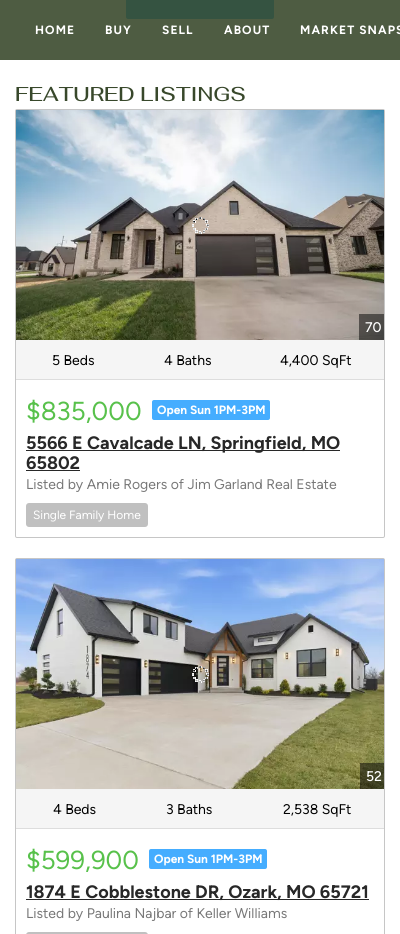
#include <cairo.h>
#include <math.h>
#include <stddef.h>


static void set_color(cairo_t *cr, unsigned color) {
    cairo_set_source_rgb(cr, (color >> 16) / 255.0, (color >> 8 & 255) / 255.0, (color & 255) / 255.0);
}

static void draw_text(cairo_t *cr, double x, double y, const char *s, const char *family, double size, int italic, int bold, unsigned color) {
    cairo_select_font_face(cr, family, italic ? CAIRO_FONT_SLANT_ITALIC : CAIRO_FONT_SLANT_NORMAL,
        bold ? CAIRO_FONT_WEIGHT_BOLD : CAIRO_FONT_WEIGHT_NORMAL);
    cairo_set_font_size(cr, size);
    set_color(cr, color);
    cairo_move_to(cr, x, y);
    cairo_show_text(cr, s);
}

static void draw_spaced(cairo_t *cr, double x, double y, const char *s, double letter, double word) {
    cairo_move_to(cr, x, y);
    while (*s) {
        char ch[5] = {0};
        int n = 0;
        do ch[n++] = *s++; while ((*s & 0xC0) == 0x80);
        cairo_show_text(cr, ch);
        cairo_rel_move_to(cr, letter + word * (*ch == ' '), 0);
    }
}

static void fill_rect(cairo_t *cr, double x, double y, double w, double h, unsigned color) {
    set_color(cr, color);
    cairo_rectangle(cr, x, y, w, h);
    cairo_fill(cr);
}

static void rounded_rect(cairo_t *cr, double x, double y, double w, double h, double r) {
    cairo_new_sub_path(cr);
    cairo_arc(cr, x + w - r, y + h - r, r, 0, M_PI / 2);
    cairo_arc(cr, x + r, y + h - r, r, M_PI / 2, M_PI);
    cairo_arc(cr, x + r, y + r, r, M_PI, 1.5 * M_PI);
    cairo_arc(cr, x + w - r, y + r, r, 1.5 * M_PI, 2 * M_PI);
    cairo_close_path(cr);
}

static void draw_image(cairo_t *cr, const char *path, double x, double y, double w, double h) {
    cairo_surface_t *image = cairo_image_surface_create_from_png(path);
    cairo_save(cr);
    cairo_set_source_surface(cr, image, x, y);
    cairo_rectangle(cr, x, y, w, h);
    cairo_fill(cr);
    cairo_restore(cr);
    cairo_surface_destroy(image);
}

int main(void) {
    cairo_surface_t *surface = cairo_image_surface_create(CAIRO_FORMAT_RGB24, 400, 934);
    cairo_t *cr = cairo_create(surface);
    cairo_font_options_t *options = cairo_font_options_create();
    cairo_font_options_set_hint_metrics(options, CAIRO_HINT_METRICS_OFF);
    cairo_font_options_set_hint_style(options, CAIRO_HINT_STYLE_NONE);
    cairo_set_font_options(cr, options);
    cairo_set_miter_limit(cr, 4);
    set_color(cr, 0xFFFFFF);
    cairo_paint(cr);
    fill_rect(cr, 0, 0, 400, 60, 0x4E5C42);
    set_color(cr, 0x355341);
    rounded_rect(cr, 126, -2, 148, 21, 2);
    cairo_fill(cr);
    cairo_select_font_face(cr, "Figtree", CAIRO_FONT_SLANT_NORMAL, CAIRO_FONT_WEIGHT_BOLD);
    cairo_set_font_size(cr, 12);
    set_color(cr, 0xFFFFFF);
    draw_spaced(cr, 35, 34, "HOME", 1.1, 0);
    draw_spaced(cr, 105, 34, "BUY", 1.1, 0);
    draw_spaced(cr, 162, 34, "SELL", 1.1, 0);
    draw_spaced(cr, 224, 34, "ABOUT", 1.1, 0);
    draw_spaced(cr, 300, 34, "MARKET SNAPS", 1.1, 0);
    draw_text(cr, 15, 101, "FEATURED LISTINGS", "Fahkwang Medium", 20, 0, 0, 0x38482B);
    rounded_rect(cr, 15.5, 109.5, 369, 428, 1.5);
    set_color(cr, 0xC6C6C6);
    cairo_set_line_width(cr, 1);
    cairo_stroke(cr);
    draw_image(cr, "assets/img1.png", 16, 110, 368, 230);
    draw_image(cr, "assets/img2.png", 192, 217, 17, 17);
    cairo_set_source_rgba(cr, 0, 0, 0, 0.5);
    cairo_rectangle(cr, 359, 314, 25, 26);
    cairo_fill(cr);
    draw_text(cr, 365, 332, "70", "Figtree Medium", 14, 0, 0, 0xFFFFFF);
    fill_rect(cr, 16, 340, 368, 39, 0xF5F5F5);
    fill_rect(cr, 16, 379, 368, 1, 0xDDDDDD);
    draw_text(cr, 52, 365, "5 Beds", "Figtree", 14, 0, 0, 0x000000);
    draw_text(cr, 164, 365, "4 Baths", "Figtree", 14, 0, 0, 0x000000);
    draw_text(cr, 280, 365, "4,400 SqFt", "Figtree", 14, 0, 0, 0x000000);
    draw_text(cr, 26, 420, "$835,000", "Figtree", 26, 0, 0, 0x58C14B);
    set_color(cr, 0x45ADFF);
    rounded_rect(cr, 152, 400, 118, 20, 2);
    cairo_fill(cr);
    draw_text(cr, 157, 414, "Open Sun 1PM-3PM", "Figtree", 12, 0, 1, 0xFFFFFF);
    fill_rect(cr, 26, 450, 314, 1, 0x282828);
    draw_text(cr, 26, 449, "5566 E Cavalcade LN, Springfield, MO", "Figtree", 18, 0, 1, 0x282828);
    draw_text(cr, 26, 469, "65802", "Figtree", 18, 0, 1, 0x282828);
    fill_rect(cr, 26, 470, 54, 1, 0x282828);
    draw_text(cr, 26, 489, "Listed by Amie Rogers of Jim Garland Real Estate", "Figtree", 14, 0, 0, 0x787878);
    set_color(cr, 0xC0C0C0);
    rounded_rect(cr, 26, 503, 122, 24, 3);
    cairo_fill(cr);
    draw_text(cr, 33, 519, "Single Family Home", "Figtree", 12, 0, 0, 0xFFFFFF);
    rounded_rect(cr, 15.5, 558.5, 369, 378, 1.5);
    set_color(cr, 0xC6C6C6);
    cairo_stroke(cr);
    draw_image(cr, "assets/img3.png", 16, 559, 368, 230);
    draw_image(cr, "assets/img4.png", 192, 666, 17, 17);
    cairo_set_source_rgba(cr, 0, 0, 0, 0.5);
    cairo_rectangle(cr, 360, 763, 24, 26);
    cairo_fill(cr);
    draw_text(cr, 366, 781, "52", "Figtree Medium", 14, 0, 0, 0xFFFFFF);
    fill_rect(cr, 16, 789, 368, 39, 0xF5F5F5);
    fill_rect(cr, 16, 828, 368, 1, 0xDDDDDD);
    draw_text(cr, 53, 814, "4 Beds", "Figtree", 14, 0, 0, 0x000000);
    draw_text(cr, 166, 814, "3 Baths", "Figtree", 14, 0, 0, 0x000000);
    draw_text(cr, 283, 814, "2,538 SqFt", "Figtree", 14, 0, 0, 0x000000);
    draw_text(cr, 26, 869, "$599,900", "Figtree", 26, 0, 0, 0x58C14B);
    set_color(cr, 0x45ADFF);
    rounded_rect(cr, 149, 849, 118, 20, 2);
    cairo_fill(cr);
    draw_text(cr, 154, 863, "Open Sun 1PM-3PM", "Figtree", 12, 0, 1, 0xFFFFFF);
    fill_rect(cr, 26, 899, 343, 1, 0x282828);
    draw_text(cr, 26, 898, "1874 E Cobblestone DR, Ozark, MO 65721", "Figtree", 18, 0, 1, 0x282828);
    draw_text(cr, 26, 918, "Listed by Paulina Najbar of Keller Williams", "Figtree", 14, 0, 0, 0x787878);
    set_color(cr, 0xC0C0C0);
    rounded_rect(cr, 26, 932, 122, 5, 3);
    cairo_fill(cr);
    cairo_surface_write_to_png(surface, "output.png");
    cairo_font_options_destroy(options);
    cairo_destroy(cr);
    cairo_surface_destroy(surface);
    return 0;
}
